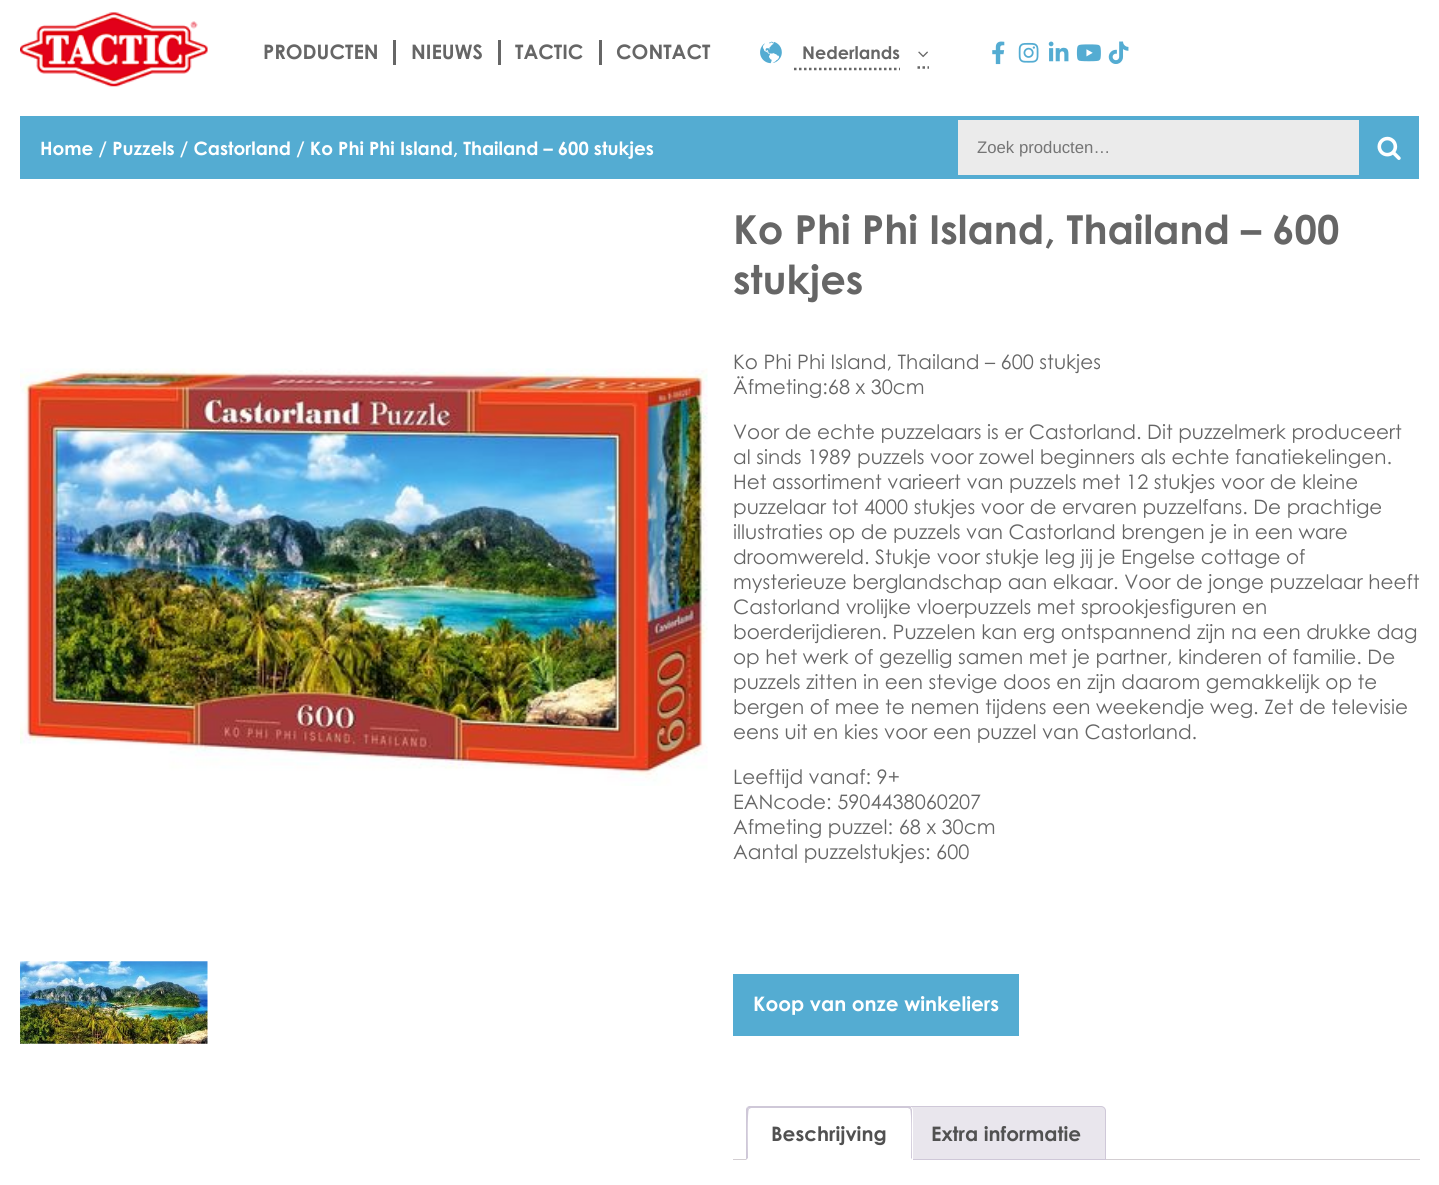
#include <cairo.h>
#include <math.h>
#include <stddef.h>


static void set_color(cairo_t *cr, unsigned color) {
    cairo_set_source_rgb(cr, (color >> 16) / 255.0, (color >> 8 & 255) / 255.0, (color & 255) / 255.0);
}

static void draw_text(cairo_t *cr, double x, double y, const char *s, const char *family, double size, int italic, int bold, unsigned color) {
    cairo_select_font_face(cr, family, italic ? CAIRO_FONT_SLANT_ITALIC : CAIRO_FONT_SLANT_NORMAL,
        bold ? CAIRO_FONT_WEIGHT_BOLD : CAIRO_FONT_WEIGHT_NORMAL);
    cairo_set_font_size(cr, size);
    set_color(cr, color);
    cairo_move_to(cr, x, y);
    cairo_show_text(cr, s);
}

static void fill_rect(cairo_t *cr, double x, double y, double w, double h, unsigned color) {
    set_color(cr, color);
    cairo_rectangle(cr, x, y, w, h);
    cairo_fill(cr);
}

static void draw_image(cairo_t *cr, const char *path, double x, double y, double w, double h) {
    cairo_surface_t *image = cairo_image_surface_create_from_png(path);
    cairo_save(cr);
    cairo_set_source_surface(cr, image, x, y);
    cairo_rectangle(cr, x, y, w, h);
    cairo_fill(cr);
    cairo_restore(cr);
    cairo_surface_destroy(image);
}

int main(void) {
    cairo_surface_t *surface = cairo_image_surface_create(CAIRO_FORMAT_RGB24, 1439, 1185);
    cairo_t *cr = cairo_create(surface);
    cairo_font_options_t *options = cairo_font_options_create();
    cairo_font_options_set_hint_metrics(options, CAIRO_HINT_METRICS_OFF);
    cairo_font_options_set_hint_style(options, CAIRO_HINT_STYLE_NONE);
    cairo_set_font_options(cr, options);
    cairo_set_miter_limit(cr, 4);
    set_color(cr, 0xFFFFFF);
    cairo_paint(cr);
    draw_image(cr, "assets/img1.png", 20, 12, 188, 75);
    draw_text(cr, 263, 59, "PRODUCTEN", "Century Gothic", 20, 0, 1, 0x666666);
    fill_rect(cr, 393, 40, 3, 25, 0x666666);
    draw_text(cr, 411, 59, "NIEUWS", "Century Gothic", 20, 0, 1, 0x666666);
    fill_rect(cr, 498, 40, 3, 25, 0x666666);
    draw_text(cr, 515, 59, "TACTIC", "Century Gothic", 20, 0, 1, 0x666666);
    fill_rect(cr, 599, 40, 3, 25, 0x666666);
    draw_text(cr, 616, 59, "CONTACT", "Century Gothic", 20, 0, 1, 0x666666);
    draw_image(cr, "assets/img2.png", 760, 41, 22, 23);
    draw_text(cr, 802, 59, "Nederlands", "Century Gothic", 17.5, 0, 1, 0x666666);
    cairo_new_path(cr);
    cairo_move_to(cr, 794, 69);
    cairo_line_to(cr, 900, 69);
    cairo_set_line_width(cr, 2.5);
    cairo_set_dash(cr, (double[]){2.5, 2.5}, 2, 0);
    cairo_stroke(cr);
    cairo_new_path(cr);
    cairo_move_to(cr, 917.5, 67.5);
    cairo_line_to(cr, 920, 67.5);
    cairo_move_to(cr, 922.5, 67.5);
    cairo_line_to(cr, 925, 67.5);
    cairo_move_to(cr, 927.5, 67.5);
    cairo_line_to(cr, 929, 67.5);
    cairo_set_dash(cr, NULL, 0, 0);
    cairo_stroke(cr);
    draw_image(cr, "assets/img3.png", 918, 51, 10, 7);
    draw_image(cr, "assets/img4.png", 992, 41, 13, 24);
    draw_image(cr, "assets/img5.png", 1018, 42, 21, 21);
    draw_image(cr, "assets/img6.png", 1048, 41, 21, 21);
    draw_image(cr, "assets/img7.png", 1076, 44, 25, 18);
    draw_image(cr, "assets/img8.png", 1108, 41, 21, 23);
    fill_rect(cr, 20, 116, 934, 63, 0x54ACD2);
    draw_text(cr, 40, 155, "Home / Puzzels / Castorland / Ko Phi Phi Island, Thailand – 600 stukjes", "Century Gothic", 18.4, 0, 1, 0xFFFFFF);
    fill_rect(cr, 958, 120, 401, 55, 0xEBEBEB);
    fill_rect(cr, 954, 116, 405, 4, 0x54ACD2);
    fill_rect(cr, 954, 175, 405, 4, 0x54ACD2);
    fill_rect(cr, 954, 116, 4, 63, 0x54ACD2);
    draw_text(cr, 977, 153, "Zoek producten…", "Liberation Sans", 16.75, 0, 0, 0x757575);
    fill_rect(cr, 1359, 116, 60, 63, 0x54ACD2);
    draw_image(cr, "assets/img9.png", 1377, 136, 24, 24);
    draw_image(cr, "assets/img10.png", 20, 368, 688, 418);
    draw_image(cr, "assets/img11.png", 20, 961, 188, 83);
    draw_text(cr, 733, 244, "Ko Phi Phi Island, Thailand – 600", "Century Gothic", 40, 0, 1, 0x666666);
    draw_text(cr, 733, 294, "stukjes", "Century Gothic", 40, 0, 1, 0x666666);
    draw_text(cr, 733, 369, "Ko Phi Phi Island, Thailand – 600 stukjes", "Century Gothic", 20, 0, 0, 0x666666);
    draw_text(cr, 733, 394, "Äfmeting:68 x 30cm", "Century Gothic", 20, 0, 0, 0x666666);
    draw_text(cr, 733, 439, "Voor de echte puzzelaars is er Castorland. Dit puzzelmerk produceert", "Century Gothic", 20, 0, 0, 0x666666);
    draw_text(cr, 733, 464, "al sinds 1989 puzzels voor zowel beginners als echte fanatiekelingen.", "Century Gothic", 20, 0, 0, 0x666666);
    draw_text(cr, 733, 489, "Het assortiment varieert van puzzels met 12 stukjes voor de kleine", "Century Gothic", 20, 0, 0, 0x666666);
    draw_text(cr, 733, 514, "puzzelaar tot 4000 stukjes voor de ervaren puzzelfans. De prachtige", "Century Gothic", 20, 0, 0, 0x666666);
    draw_text(cr, 733, 539, "illustraties op de puzzels van Castorland brengen je in een ware", "Century Gothic", 20, 0, 0, 0x666666);
    draw_text(cr, 733, 564, "droomwereld. Stukje voor stukje leg jij je Engelse cottage of", "Century Gothic", 20, 0, 0, 0x666666);
    draw_text(cr, 733, 589, "mysterieuze berglandschap aan elkaar. Voor de jonge puzzelaar heeft", "Century Gothic", 20, 0, 0, 0x666666);
    draw_text(cr, 733, 614, "Castorland vrolijke vloerpuzzels met sprookjesfiguren en", "Century Gothic", 20, 0, 0, 0x666666);
    draw_text(cr, 733, 639, "boerderijdieren. Puzzelen kan erg ontspannend zijn na een drukke dag", "Century Gothic", 20, 0, 0, 0x666666);
    draw_text(cr, 733, 664, "op het werk of gezellig samen met je partner, kinderen of familie. De", "Century Gothic", 20, 0, 0, 0x666666);
    draw_text(cr, 733, 689, "puzzels zitten in een stevige doos en zijn daarom gemakkelijk op te", "Century Gothic", 20, 0, 0, 0x666666);
    draw_text(cr, 733, 714, "bergen of mee te nemen tijdens een weekendje weg. Zet de televisie", "Century Gothic", 20, 0, 0, 0x666666);
    draw_text(cr, 733, 739, "eens uit en kies voor een puzzel van Castorland.", "Century Gothic", 20, 0, 0, 0x666666);
    draw_text(cr, 733, 784, "Leeftijd vanaf: 9+", "Century Gothic", 20, 0, 0, 0x666666);
    draw_text(cr, 733, 809, "EANcode: 5904438060207", "Century Gothic", 20, 0, 0, 0x666666);
    draw_text(cr, 733, 834, "Afmeting puzzel: 68 x 30cm", "Century Gothic", 20, 0, 0, 0x666666);
    draw_text(cr, 733, 859, "Aantal puzzelstukjes: 600", "Century Gothic", 20, 0, 0, 0x666666);
    fill_rect(cr, 733, 974, 286, 62, 0x54ACD2);
    draw_text(cr, 753, 1011, "Koop van onze winkeliers", "Century Gothic", 20, 0, 1, 0xFFFFFF);
    fill_rect(cr, 733, 1159, 687, 1, 0xD3CED2);
    set_color(cr, 0xE9E6ED);
    cairo_new_path(cr);
    cairo_move_to(cr, 910, 1106.5);
    cairo_line_to(cr, 1101, 1106.5);
    cairo_curve_to(cr, 1103.5, 1106.5, 1105.5, 1108.5, 1105.5, 1111);
    cairo_line_to(cr, 1105.5, 1159.5);
    cairo_line_to(cr, 905.5, 1159.5);
    cairo_line_to(cr, 905.5, 1111);
    cairo_curve_to(cr, 905.5, 1108.5, 907.5, 1106.5, 910, 1106.5);
    cairo_close_path(cr);
    cairo_fill_preserve(cr);
    set_color(cr, 0xCFC8D8);
    cairo_set_line_width(cr, 1);
    cairo_stroke(cr);
    set_color(cr, 0xFFFFFF);
    cairo_new_path(cr);
    cairo_move_to(cr, 751, 1106);
    cairo_line_to(cr, 908, 1106);
    cairo_curve_to(cr, 911, 1106, 913, 1108, 913, 1111);
    cairo_line_to(cr, 913, 1160);
    cairo_line_to(cr, 746, 1160);
    cairo_line_to(cr, 746, 1111);
    cairo_curve_to(cr, 746, 1108, 748, 1106, 751, 1106);
    cairo_close_path(cr);
    cairo_fill(cr);
    cairo_save(cr);
    cairo_rectangle(cr, 733, 1106, 687, 54);
    cairo_clip(cr);
    set_color(cr, 0xCFC8D8);
    cairo_new_path(cr);
    cairo_move_to(cr, 751, 1108);
    cairo_line_to(cr, 749, 1109);
    cairo_line_to(cr, 747, 1107);
    cairo_line_to(cr, 749, 1106);
    cairo_line_to(cr, 883, 1106);
    cairo_curve_to(cr, 892, 1106, 904, 1100, 911, 1107);
    cairo_line_to(cr, 911, 1108);
    cairo_line_to(cr, 910, 1109);
    cairo_line_to(cr, 908, 1108);
    cairo_close_path(cr);
    cairo_fill(cr);
    cairo_restore(cr);
    set_color(cr, 0xCFC8D8);
    cairo_new_path(cr);
    cairo_move_to(cr, 911, 1108);
    cairo_curve_to(cr, 912, 1109, 912, 1110, 912, 1111);
    cairo_line_to(cr, 912, 1160);
    cairo_line_to(cr, 911, 1158);
    cairo_curve_to(cr, 911, 1153, 912, 1110, 910, 1109);
    cairo_close_path(cr);
    cairo_fill(cr);
    set_color(cr, 0xFFFFFF);
    cairo_new_path(cr);
    cairo_move_to(cr, 746, 1160);
    cairo_line_to(cr, 912, 1160);
    cairo_line_to(cr, 911, 1158);
    cairo_line_to(cr, 911, 1159);
    cairo_line_to(cr, 748, 1159);
    cairo_line_to(cr, 748, 1158);
    cairo_close_path(cr);
    cairo_fill(cr);
    set_color(cr, 0xCFC8D8);
    cairo_new_path(cr);
    cairo_move_to(cr, 746, 1160);
    cairo_line_to(cr, 746, 1109);
    cairo_line_to(cr, 747, 1107);
    cairo_line_to(cr, 749, 1109);
    cairo_curve_to(cr, 747, 1111, 748, 1152, 748, 1158);
    cairo_close_path(cr);
    cairo_fill(cr);
    draw_text(cr, 771, 1141, "Beschrijving", "Century Gothic", 20, 0, 1, 0x515151);
    draw_text(cr, 931, 1141, "Extra informatie", "Century Gothic", 20, 0, 1, 0x515151);
    cairo_surface_write_to_png(surface, "output.png");
    cairo_font_options_destroy(options);
    cairo_destroy(cr);
    cairo_surface_destroy(surface);
    return 0;
}
